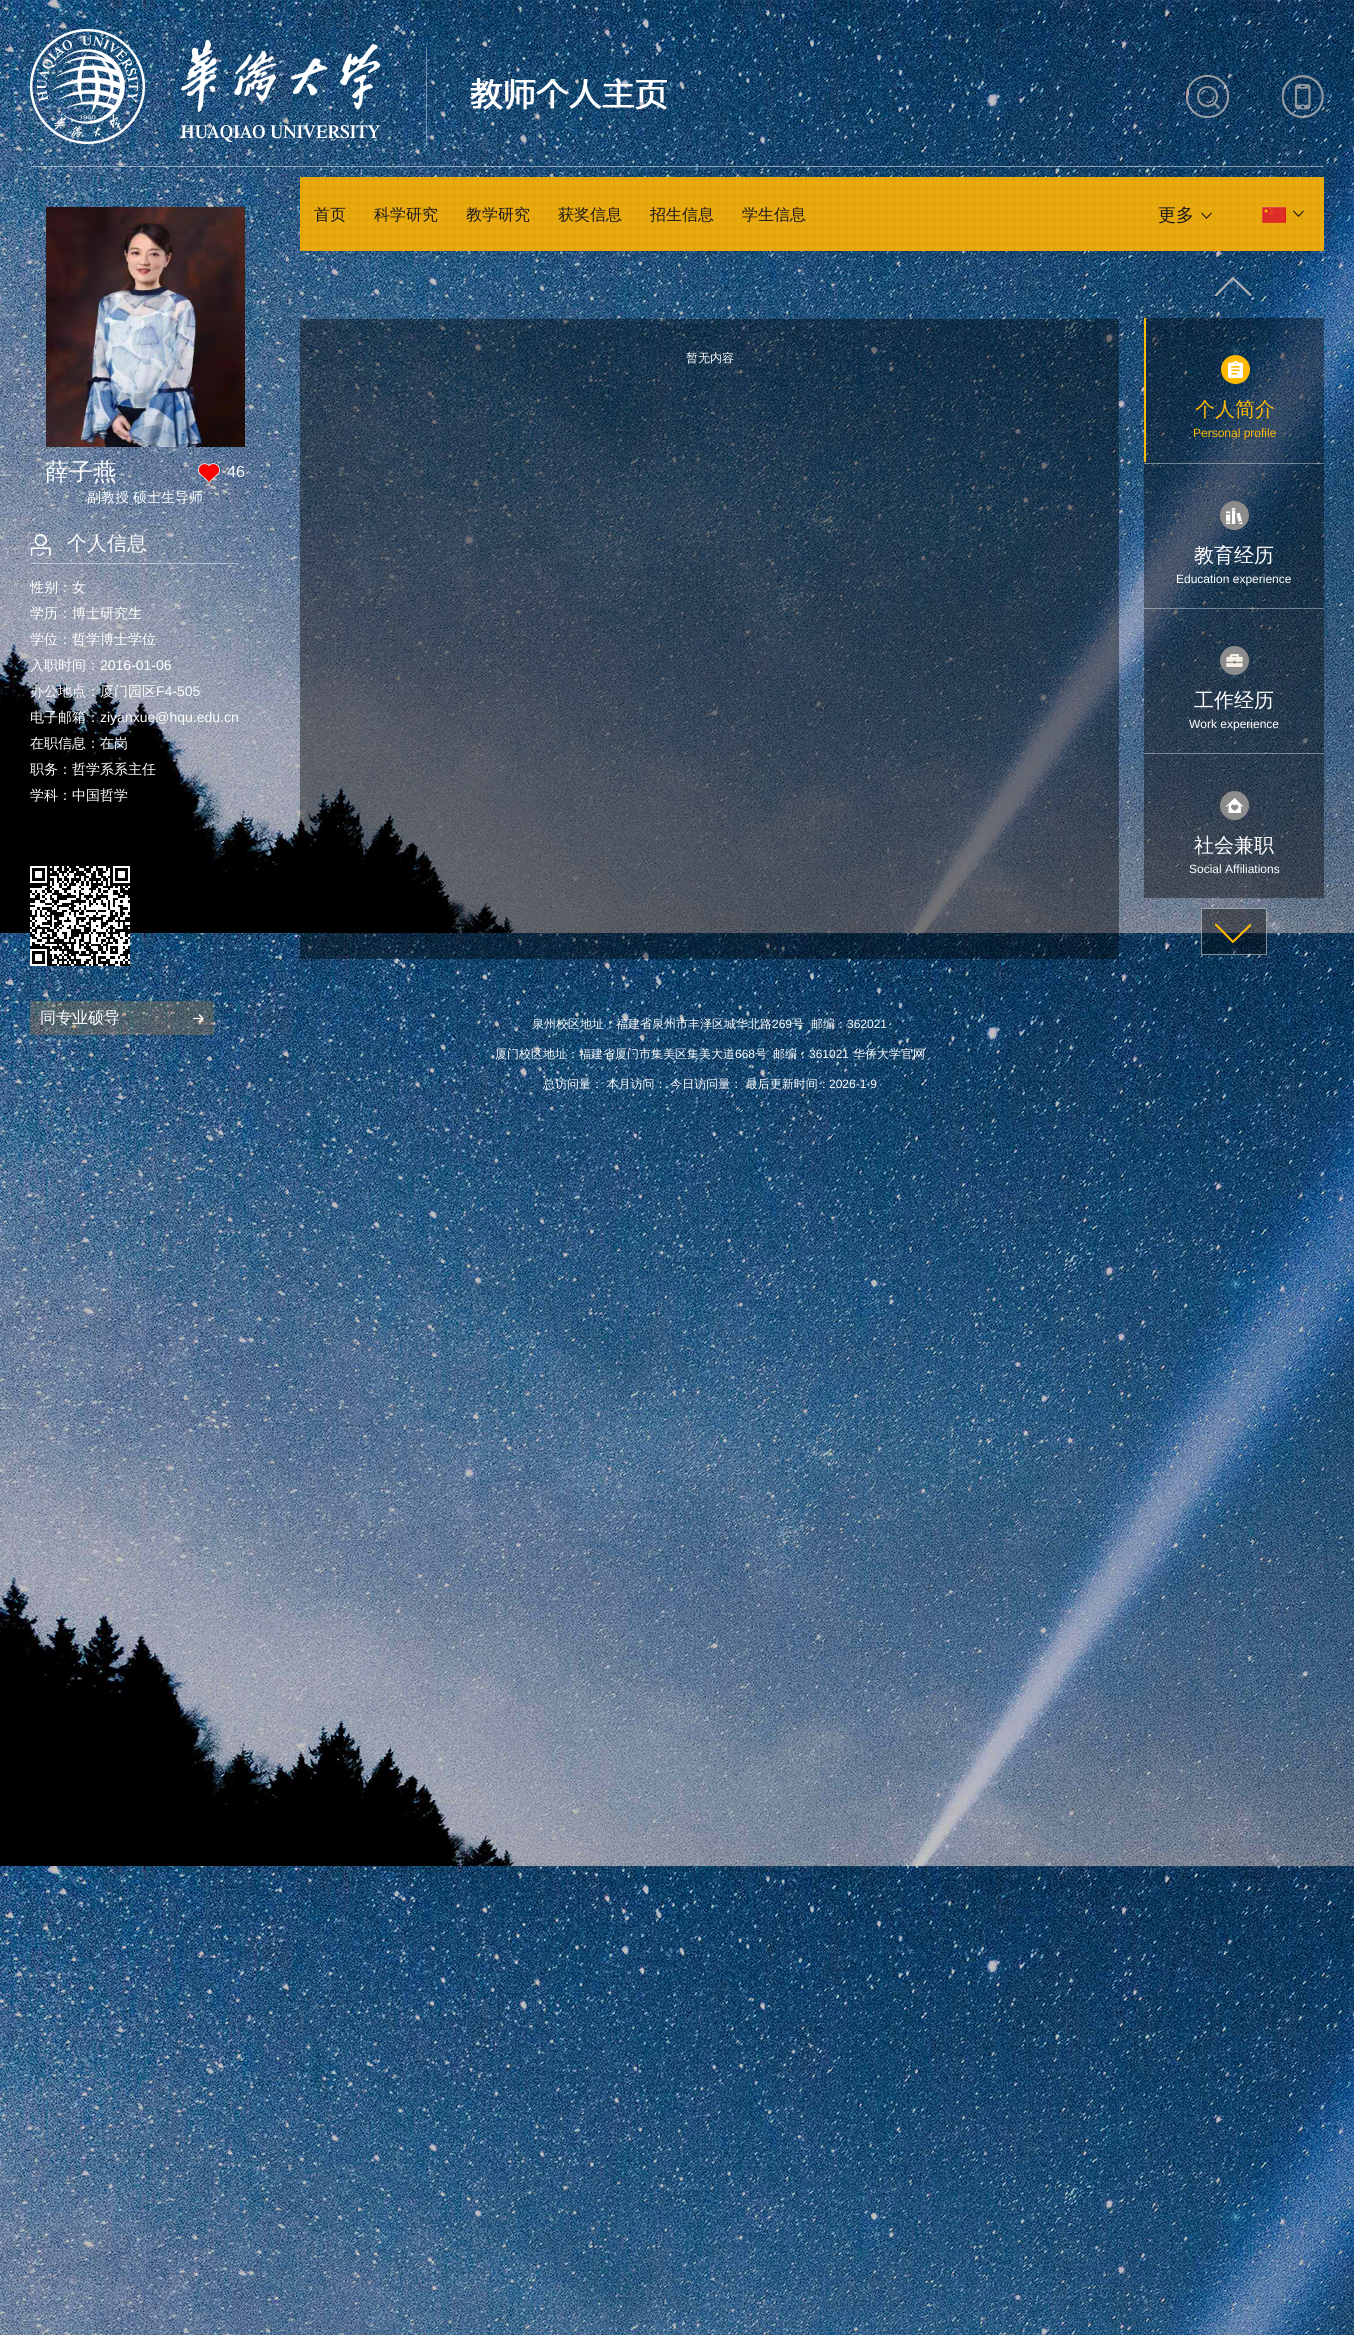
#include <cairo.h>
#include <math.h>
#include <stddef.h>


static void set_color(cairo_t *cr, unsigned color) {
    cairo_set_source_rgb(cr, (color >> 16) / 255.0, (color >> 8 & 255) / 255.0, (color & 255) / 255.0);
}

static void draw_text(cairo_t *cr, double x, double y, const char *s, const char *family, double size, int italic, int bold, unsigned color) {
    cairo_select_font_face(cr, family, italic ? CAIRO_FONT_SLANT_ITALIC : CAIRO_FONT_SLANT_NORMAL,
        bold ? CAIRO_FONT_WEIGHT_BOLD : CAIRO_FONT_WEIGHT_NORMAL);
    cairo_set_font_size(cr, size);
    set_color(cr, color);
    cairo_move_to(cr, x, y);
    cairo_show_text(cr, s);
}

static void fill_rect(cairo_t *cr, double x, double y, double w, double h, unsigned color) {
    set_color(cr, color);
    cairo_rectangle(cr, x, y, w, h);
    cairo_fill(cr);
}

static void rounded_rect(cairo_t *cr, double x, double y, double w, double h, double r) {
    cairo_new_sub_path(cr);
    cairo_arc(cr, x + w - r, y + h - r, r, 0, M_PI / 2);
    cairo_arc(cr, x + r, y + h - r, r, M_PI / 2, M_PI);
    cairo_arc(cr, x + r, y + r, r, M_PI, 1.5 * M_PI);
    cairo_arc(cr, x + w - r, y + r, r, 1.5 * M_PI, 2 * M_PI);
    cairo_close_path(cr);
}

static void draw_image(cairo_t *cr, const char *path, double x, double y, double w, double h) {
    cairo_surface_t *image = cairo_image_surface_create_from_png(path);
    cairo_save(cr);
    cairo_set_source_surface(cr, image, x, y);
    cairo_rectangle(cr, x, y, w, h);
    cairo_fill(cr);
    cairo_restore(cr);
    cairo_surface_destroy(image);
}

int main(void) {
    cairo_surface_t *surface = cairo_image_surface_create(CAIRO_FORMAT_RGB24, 1354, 2335);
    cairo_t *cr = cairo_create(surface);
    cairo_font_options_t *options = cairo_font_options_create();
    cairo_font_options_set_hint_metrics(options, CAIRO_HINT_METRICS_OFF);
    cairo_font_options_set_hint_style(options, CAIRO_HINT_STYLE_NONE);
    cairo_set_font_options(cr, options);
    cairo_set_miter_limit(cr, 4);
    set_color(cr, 0xFFFFFF);
    cairo_paint(cr);
    draw_image(cr, "assets/img1.png", 0, 0, 1354, 2335);
    cairo_set_source_rgba(cr, 1, 1, 1, 0.5);
    cairo_rectangle(cr, 30, 166, 1294, 1);
    cairo_fill(cr);
    draw_image(cr, "assets/img2.png", 30, 29, 637, 116);
    draw_image(cr, "assets/img3.png", 1186, 86, 34, 23);
    rounded_rect(cr, 1187, 76, 41, 41, 20);
    cairo_set_source_rgba(cr, 0.733, 0.729, 0.722, 0.8);
    cairo_stroke(cr);
    draw_image(cr, "assets/img4.png", 1282, 75, 42, 43);
    draw_image(cr, "assets/img5.png", 46, 207, 199, 240);
    draw_text(cr, 45, 480, "薛子燕", "WenQuanYi Zen Hei Medium", 24, 0, 0, 0xFFFFFF);
    draw_image(cr, "assets/img6.png", 198, 463, 22, 20);
    draw_text(cr, 227, 477, "46", "Liberation Sans", 16, 0, 0, 0xFFFFFF);
    draw_text(cr, 87, 502, "副教授", "WenQuanYi Zen Hei Medium", 14, 0, 0, 0xFFFFFF);
    draw_text(cr, 133, 502, "硕士生导师", "WenQuanYi Zen Hei Medium", 14, 0, 0, 0xFFFFFF);
    cairo_set_source_rgba(cr, 1, 1, 1, 0.5);
    cairo_rectangle(cr, 30, 563, 208, 1);
    cairo_fill(cr);
    draw_image(cr, "assets/img7.png", 31, 534, 20, 22);
    draw_text(cr, 67, 550, "个人信息", "WenQuanYi Zen Hei Medium", 20, 0, 0, 0xFFFFFF);
    draw_text(cr, 30, 592, "性别：女", "WenQuanYi Zen Hei Medium", 14, 0, 0, 0xFFFFFF);
    draw_text(cr, 30, 618, "学历：博士研究生", "WenQuanYi Zen Hei Medium", 14, 0, 0, 0xFFFFFF);
    draw_text(cr, 30, 644, "学位：哲学博士学位", "WenQuanYi Zen Hei Medium", 14, 0, 0, 0xFFFFFF);
    draw_text(cr, 30, 670, "入职时间：", "WenQuanYi Zen Hei Medium", 14, 0, 0, 0xFFFFFF);
    draw_text(cr, 100, 670, "2016-01-06", "Liberation Sans", 14, 0, 0, 0xFFFFFF);
    draw_text(cr, 30, 696, "办公地点：厦门园区", "WenQuanYi Zen Hei Medium", 14, 0, 0, 0xFFFFFF);
    draw_text(cr, 156, 696, "F4-505", "Liberation Sans", 14, 0, 0, 0xFFFFFF);
    draw_text(cr, 30, 722, "电子邮箱：", "WenQuanYi Zen Hei Medium", 14, 0, 0, 0xFFFFFF);
    draw_text(cr, 100, 722, "ziyanxue@hqu.edu.cn", "Liberation Sans", 14, 0, 0, 0xFFFFFF);
    draw_text(cr, 30, 748, "在职信息：在岗", "WenQuanYi Zen Hei Medium", 14, 0, 0, 0xFFFFFF);
    draw_text(cr, 30, 774, "职务：哲学系系主任", "WenQuanYi Zen Hei Medium", 14, 0, 0, 0xFFFFFF);
    draw_text(cr, 30, 800, "学科：中国哲学", "WenQuanYi Zen Hei Medium", 14, 0, 0, 0xFFFFFF);
    draw_image(cr, "assets/img8.png", 30, 866, 100, 100);
    cairo_set_source_rgba(cr, 0.745, 0.522, 0.259, 0.3);
    cairo_rectangle(cr, 30, 1001, 184, 34);
    cairo_fill(cr);
    draw_text(cr, 40, 1023, "同专业硕导", "WenQuanYi Zen Hei Medium", 16, 0, 0, 0xFFFFFF);
    draw_image(cr, "assets/img9.png", 193, 1014, 11, 9);
    draw_image(cr, "assets/img10.png", 300, 177, 1024, 74);
    draw_text(cr, 314, 220, "首页", "WenQuanYi Zen Hei Medium", 16, 0, 0, 0x1A1A1A);
    draw_text(cr, 374, 220, "科学研究", "WenQuanYi Zen Hei Medium", 16, 0, 0, 0x1A1A1A);
    draw_text(cr, 466, 220, "教学研究", "WenQuanYi Zen Hei Medium", 16, 0, 0, 0x1A1A1A);
    draw_text(cr, 558, 220, "获奖信息", "WenQuanYi Zen Hei Medium", 16, 0, 0, 0x1A1A1A);
    draw_text(cr, 650, 220, "招生信息", "WenQuanYi Zen Hei Medium", 16, 0, 0, 0x1A1A1A);
    draw_text(cr, 742, 220, "学生信息", "WenQuanYi Zen Hei Medium", 16, 0, 0, 0x1A1A1A);
    draw_text(cr, 1158, 221, "更多", "WenQuanYi Zen Hei Medium", 18, 0, 0, 0x1A1A1A);
    draw_image(cr, "assets/img11.png", 1201, 212, 11, 7);
    draw_image(cr, "assets/img12.png", 1262, 207, 24, 16);
    draw_image(cr, "assets/img13.png", 1293, 210, 11, 7);
    cairo_set_source_rgba(cr, 0, 0, 0, 0.4);
    cairo_rectangle(cr, 300, 319, 819, 640);
    cairo_fill(cr);
    draw_text(cr, 686, 362, "暂无内容", "WenQuanYi Zen Hei Medium", 12, 0, 0, 0xFFFFFF);
    draw_text(cr, 532, 1028, "泉州校区地址：福建省泉州市丰泽区城华北路", "WenQuanYi Zen Hei Medium", 12, 0, 0, 0xFFFFFF);
    draw_text(cr, 772, 1028, "269", "Liberation Sans", 12, 0, 0, 0xFFFFFF);
    draw_text(cr, 792, 1028, "号", "WenQuanYi Zen Hei Medium", 12, 0, 0, 0xFFFFFF);
    draw_text(cr, 811, 1028, "邮编：", "WenQuanYi Zen Hei Medium", 12, 0, 0, 0xFFFFFF);
    draw_text(cr, 847, 1028, "362021", "Liberation Sans", 12, 0, 0, 0xFFFFFF);
    draw_text(cr, 495, 1058, "厦门校区地址：福建省厦门市集美区集美大道", "WenQuanYi Zen Hei Medium", 12, 0, 0, 0xFFFFFF);
    draw_text(cr, 735, 1058, "668", "Liberation Sans", 12, 0, 0, 0xFFFFFF);
    draw_text(cr, 755, 1058, "号", "WenQuanYi Zen Hei Medium", 12, 0, 0, 0xFFFFFF);
    draw_text(cr, 773, 1058, "邮编：", "WenQuanYi Zen Hei Medium", 12, 0, 0, 0xFFFFFF);
    draw_text(cr, 809, 1058, "361021", "Liberation Sans", 12, 0, 0, 0xFFFFFF);
    draw_text(cr, 853, 1058, "华侨大学官网", "WenQuanYi Zen Hei Medium", 12, 0, 0, 0xFFFFFF);
    draw_text(cr, 543, 1088, "总访问量： 本月访问： 今日访问量： 最后更新时间：", "WenQuanYi Zen Hei Medium", 12, 0, 0, 0xFFFFFF);
    draw_text(cr, 829, 1088, "2026-1-9", "Liberation Sans", 12, 0, 0, 0xFFFFFF);
    draw_image(cr, "assets/img14.png", 1215, 277, 36, 19);
    cairo_set_source_rgba(cr, 0, 0, 0, 0.4);
    cairo_rectangle(cr, 1144, 318, 180, 145);
    cairo_fill(cr);
    fill_rect(cr, 1144, 318, 2, 144, 0xFFB901);
    cairo_arc(cr, 1235.5, 369.5, 14.5, 0, 2 * M_PI);
    cairo_fill(cr);
    draw_image(cr, "assets/img15.png", 1228, 361, 15, 17);
    draw_text(cr, 1195, 416, "个人简介", "WenQuanYi Zen Hei Medium", 20, 0, 0, 0xFFB901);
    draw_text(cr, 1193, 437, "Personal profile", "Liberation Sans", 12, 0, 0, 0xFFB901);
    cairo_set_source_rgba(cr, 0, 0, 0, 0.4);
    cairo_rectangle(cr, 1144, 463, 180, 145);
    cairo_fill(cr);
    cairo_set_source_rgba(cr, 1, 1, 1, 0.4);
    cairo_rectangle(cr, 1144, 463, 180, 1);
    cairo_fill(cr);
    set_color(cr, 0x8C8C8C);
    cairo_arc(cr, 1234.5, 515.5, 14.5, 0, 2 * M_PI);
    cairo_fill(cr);
    draw_image(cr, "assets/img16.png", 1226, 508, 17, 16);
    draw_text(cr, 1194, 562, "教育经历", "WenQuanYi Zen Hei Medium", 20, 0, 0, 0xFFFFFF);
    draw_text(cr, 1176, 583, "Education experience", "Liberation Sans", 12, 0, 0, 0xFFFFFF);
    cairo_set_source_rgba(cr, 0, 0, 0, 0.4);
    cairo_rectangle(cr, 1144, 608, 180, 145);
    cairo_fill(cr);
    cairo_set_source_rgba(cr, 1, 1, 1, 0.4);
    cairo_rectangle(cr, 1144, 608, 180, 1);
    cairo_fill(cr);
    set_color(cr, 0x8C8C8C);
    cairo_arc(cr, 1234.5, 660.5, 14.5, 0, 2 * M_PI);
    cairo_fill(cr);
    draw_image(cr, "assets/img17.png", 1226, 654, 17, 13);
    draw_text(cr, 1194, 707, "工作经历", "WenQuanYi Zen Hei Medium", 20, 0, 0, 0xFFFFFF);
    draw_text(cr, 1189, 728, "Work experience", "Liberation Sans", 12, 0, 0, 0xFFFFFF);
    cairo_set_source_rgba(cr, 0, 0, 0, 0.4);
    cairo_rectangle(cr, 1144, 753, 180, 145);
    cairo_fill(cr);
    cairo_set_source_rgba(cr, 1, 1, 1, 0.4);
    cairo_rectangle(cr, 1144, 753, 180, 1);
    cairo_fill(cr);
    set_color(cr, 0x8C8C8C);
    cairo_arc(cr, 1234.5, 805.5, 14.5, 0, 2 * M_PI);
    cairo_fill(cr);
    draw_image(cr, "assets/img18.png", 1226, 798, 17, 15);
    draw_text(cr, 1194, 852, "社会兼职", "WenQuanYi Zen Hei Medium", 20, 0, 0, 0xFFFFFF);
    draw_text(cr, 1189, 873, "Social Affiliations", "Liberation Sans", 12, 0, 0, 0xFFFFFF);
    cairo_set_source_rgba(cr, 0, 0, 0, 0.4);
    cairo_rectangle(cr, 1201, 908, 66, 47);
    cairo_fill(cr);
    cairo_rectangle(cr, 1201.5, 908.5, 65, 46);
    cairo_set_source_rgba(cr, 1, 1, 1, 0.5);
    cairo_set_line_width(cr, 1);
    cairo_stroke(cr);
    draw_image(cr, "assets/img19.png", 1215, 924, 36, 19);
    cairo_surface_write_to_png(surface, "output.png");
    cairo_font_options_destroy(options);
    cairo_destroy(cr);
    cairo_surface_destroy(surface);
    return 0;
}
